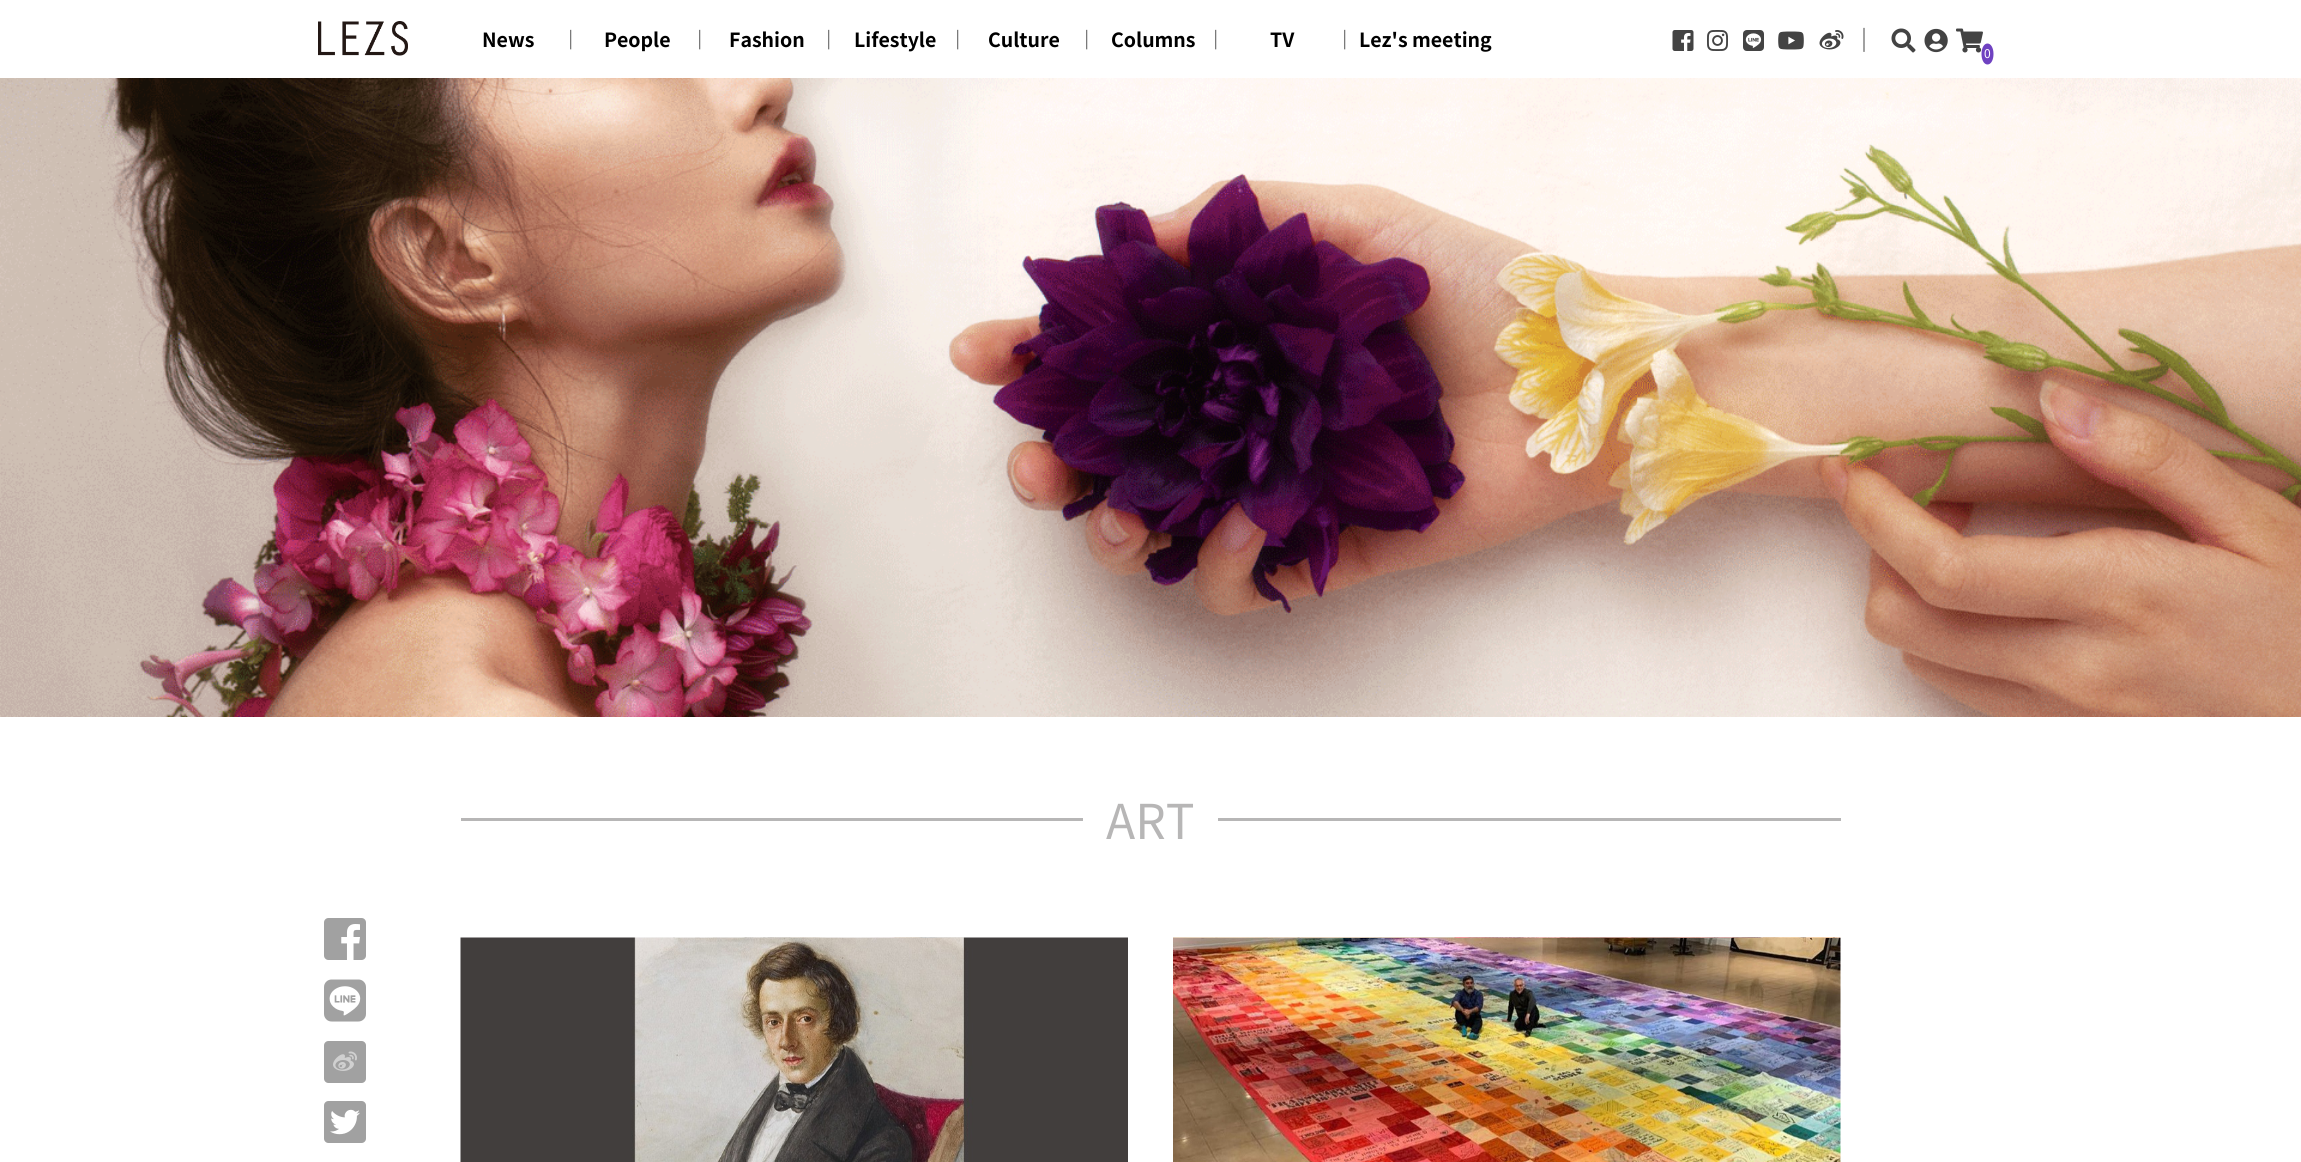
#include <cairo.h>
#include <math.h>
#include <stddef.h>


static void set_color(cairo_t *cr, unsigned color) {
    cairo_set_source_rgb(cr, (color >> 16) / 255.0, (color >> 8 & 255) / 255.0, (color & 255) / 255.0);
}

static void draw_text(cairo_t *cr, double x, double y, const char *s, const char *family, double size, int italic, int bold, unsigned color) {
    cairo_select_font_face(cr, family, italic ? CAIRO_FONT_SLANT_ITALIC : CAIRO_FONT_SLANT_NORMAL,
        bold ? CAIRO_FONT_WEIGHT_BOLD : CAIRO_FONT_WEIGHT_NORMAL);
    cairo_set_font_size(cr, size);
    set_color(cr, color);
    cairo_move_to(cr, x, y);
    cairo_show_text(cr, s);
}

static void fill_rect(cairo_t *cr, double x, double y, double w, double h, unsigned color) {
    set_color(cr, color);
    cairo_rectangle(cr, x, y, w, h);
    cairo_fill(cr);
}

static void draw_image(cairo_t *cr, const char *path, double x, double y, double w, double h) {
    cairo_surface_t *image = cairo_image_surface_create_from_png(path);
    cairo_save(cr);
    cairo_set_source_surface(cr, image, x, y);
    cairo_rectangle(cr, x, y, w, h);
    cairo_fill(cr);
    cairo_restore(cr);
    cairo_surface_destroy(image);
}

int main(void) {
    cairo_surface_t *surface = cairo_image_surface_create(CAIRO_FORMAT_RGB24, 2301, 1162);
    cairo_t *cr = cairo_create(surface);
    cairo_font_options_t *options = cairo_font_options_create();
    cairo_font_options_set_hint_metrics(options, CAIRO_HINT_METRICS_OFF);
    cairo_font_options_set_hint_style(options, CAIRO_HINT_STYLE_NONE);
    cairo_set_font_options(cr, options);
    cairo_set_miter_limit(cr, 4);
    set_color(cr, 0xFFFFFF);
    cairo_paint(cr);
    draw_image(cr, "assets/img1.png", 318, 21, 90, 35);
    draw_text(cr, 482, 47, "News", "Noto Sans TC", 19.5, 0, 1, 0x000000);
    draw_text(cr, 561, 47, "｜", "Noto Sans TC", 19.5, 0, 1, 0x434343);
    draw_text(cr, 604, 47, "People", "Noto Sans TC", 19.5, 0, 1, 0x000000);
    draw_text(cr, 690, 47, "｜", "Noto Sans TC", 19.5, 0, 1, 0x434343);
    draw_text(cr, 729, 47, "Fashion", "Noto Sans TC", 19.5, 0, 1, 0x000000);
    draw_text(cr, 819, 47, "｜", "Noto Sans TC", 19.5, 0, 1, 0x434343);
    draw_text(cr, 854, 47, "Lifestyle", "Noto Sans TC", 19.5, 0, 1, 0x000000);
    draw_text(cr, 948, 47, "｜", "Noto Sans TC", 19.5, 0, 1, 0x434343);
    draw_text(cr, 988, 47, "Culture", "Noto Sans TC", 19.5, 0, 1, 0x000000);
    draw_text(cr, 1077, 47, "｜", "Noto Sans TC", 19.5, 0, 1, 0x434343);
    draw_text(cr, 1111, 47, "Columns", "Noto Sans TC", 19.5, 0, 1, 0x000000);
    draw_text(cr, 1206, 47, "｜", "Noto Sans TC", 19.5, 0, 1, 0x434343);
    draw_text(cr, 1270, 47, "TV", "Noto Sans TC", 19.5, 0, 1, 0x000000);
    draw_text(cr, 1335, 47, "｜", "Noto Sans TC", 19.5, 0, 1, 0x434343);
    draw_text(cr, 1359, 47, "Lez's meeting", "Noto Sans TC", 19.5, 0, 1, 0x000000);
    draw_image(cr, "assets/img2.png", 1672, 30, 22, 21);
    draw_image(cr, "assets/img3.png", 1707, 30, 21, 21);
    draw_image(cr, "assets/img4.png", 1743, 30, 21, 21);
    draw_image(cr, "assets/img5.png", 1778, 31, 26, 19);
    draw_image(cr, "assets/img6.png", 1819, 30, 25, 20);
    draw_text(cr, 1852, 49, "｜", "Noto Sans TC", 24, 0, 0, 0x434343);
    draw_image(cr, "assets/img7.png", 1891, 28, 25, 25);
    draw_image(cr, "assets/img8.png", 1924, 28, 24, 25);
    draw_image(cr, "assets/img9.png", 1956, 28, 27, 25);
    set_color(cr, 0x6F42C1);
    cairo_new_path(cr);
    cairo_move_to(cr, 1987.5, 43.5);
    cairo_curve_to(cr, 1991, 43.5, 1993.5, 48, 1993.5, 54);
    cairo_curve_to(cr, 1993.5, 60, 1991, 64.5, 1987.5, 64.5);
    cairo_curve_to(cr, 1984, 64.5, 1981.5, 60, 1981.5, 54);
    cairo_curve_to(cr, 1981.5, 48, 1984, 43.5, 1987.5, 43.5);
    cairo_close_path(cr);
    cairo_fill(cr);
    draw_text(cr, 1984, 58, "0", "Noto Sans TC", 12, 0, 0, 0xFFFFFF);
    draw_image(cr, "assets/img10.png", 0, 78, 2301, 639);
    fill_rect(cr, 461, 818, 1380, 3, 0xB7B6B6);
    fill_rect(cr, 1083, 818, 135, 3, 0xFFFFFF);
    draw_text(cr, 1106, 839, "ART", "Noto Sans TC", 48, 0, 0, 0xB7B6B6);
    draw_image(cr, "assets/img11.png", 460, 937, 668, 225);
    draw_image(cr, "assets/img12.png", 1173, 937, 668, 225);
    draw_image(cr, "assets/img13.png", 324, 918, 42, 42);
    draw_image(cr, "assets/img14.png", 324, 979, 42, 43);
    draw_image(cr, "assets/img15.png", 324, 1041, 42, 42);
    draw_image(cr, "assets/img16.png", 333, 1051, 24, 20);
    draw_image(cr, "assets/img17.png", 324, 1101, 42, 42);
    cairo_surface_write_to_png(surface, "output.png");
    cairo_font_options_destroy(options);
    cairo_destroy(cr);
    cairo_surface_destroy(surface);
    return 0;
}
